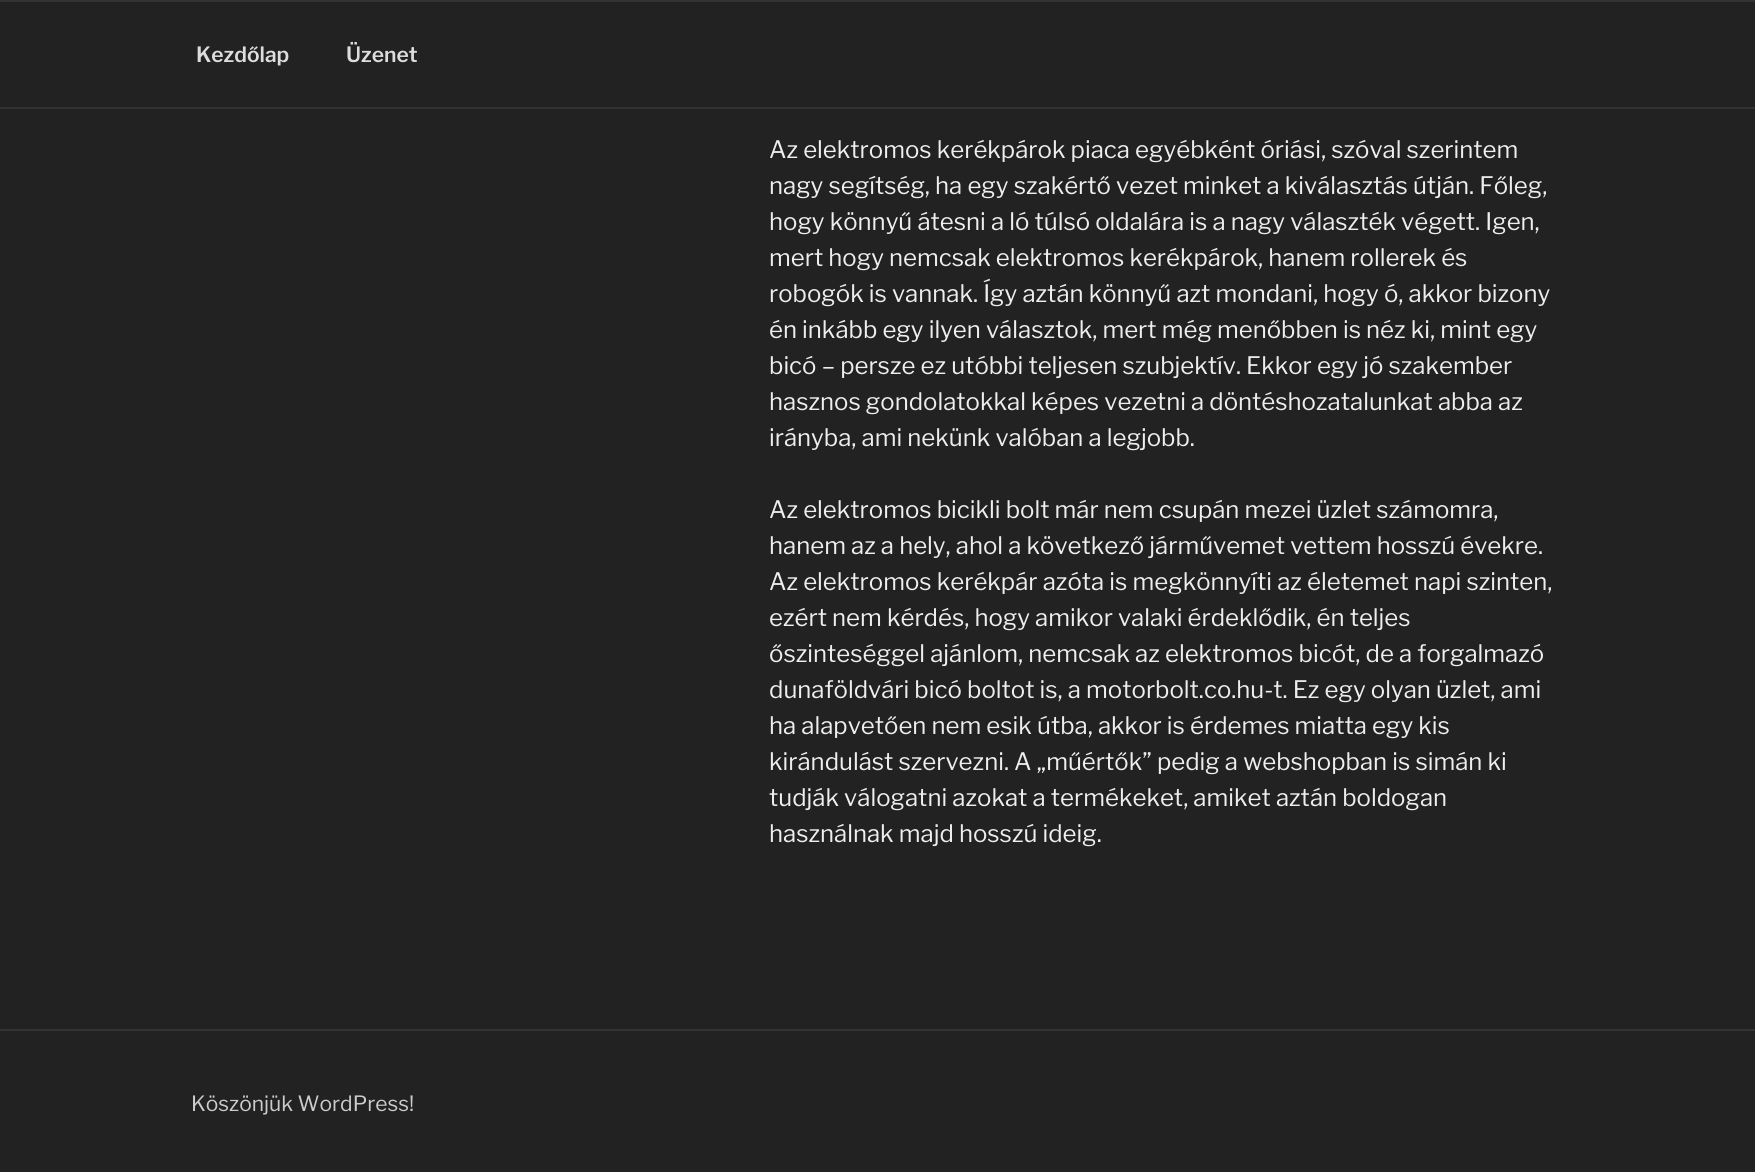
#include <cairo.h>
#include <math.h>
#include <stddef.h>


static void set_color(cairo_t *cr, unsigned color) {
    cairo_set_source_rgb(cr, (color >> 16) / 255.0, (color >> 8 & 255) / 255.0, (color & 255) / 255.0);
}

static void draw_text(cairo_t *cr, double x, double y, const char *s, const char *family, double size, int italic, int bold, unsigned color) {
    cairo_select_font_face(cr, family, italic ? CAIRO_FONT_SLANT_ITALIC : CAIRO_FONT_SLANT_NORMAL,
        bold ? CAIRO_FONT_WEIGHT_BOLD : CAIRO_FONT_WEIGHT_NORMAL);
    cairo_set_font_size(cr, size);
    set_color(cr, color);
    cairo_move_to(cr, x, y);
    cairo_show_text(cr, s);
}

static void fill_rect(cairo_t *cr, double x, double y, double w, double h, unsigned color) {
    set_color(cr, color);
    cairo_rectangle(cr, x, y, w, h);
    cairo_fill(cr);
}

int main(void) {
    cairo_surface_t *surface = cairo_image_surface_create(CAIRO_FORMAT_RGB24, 1755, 1172);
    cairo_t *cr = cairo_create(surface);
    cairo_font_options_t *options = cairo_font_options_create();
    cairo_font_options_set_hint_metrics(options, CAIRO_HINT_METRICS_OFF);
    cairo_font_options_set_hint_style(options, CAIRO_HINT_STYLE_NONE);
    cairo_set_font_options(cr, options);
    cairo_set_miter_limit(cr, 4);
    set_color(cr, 0x222222);
    cairo_paint(cr);
    fill_rect(cr, 0, 0, 1755, 2, 0x333333);
    fill_rect(cr, 0, 107, 1755, 2, 0x333333);
    draw_text(cr, 196, 62, "Kezdőlap", "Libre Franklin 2 Thin", 21, 0, 0, 0xDDDDDD);
    draw_text(cr, 346, 62, "Üzenet", "Libre Franklin 2 Thin", 21, 0, 0, 0xDDDDDD);
    draw_text(cr, 769, 158, "Az elektromos kerékpárok piaca egyébként óriási, szóval szerintem", "Libre Franklin Thin", 24, 0, 0, 0xEEEEEE);
    draw_text(cr, 769, 194, "nagy segítség, ha egy szakértő vezet minket a kiválasztás útján. Főleg,", "Libre Franklin Thin", 24, 0, 0, 0xEEEEEE);
    draw_text(cr, 769, 230, "hogy könnyű átesni a ló túlsó oldalára is a nagy választék végett. Igen,", "Libre Franklin Thin", 24, 0, 0, 0xEEEEEE);
    draw_text(cr, 769, 266, "mert hogy nemcsak elektromos kerékpárok, hanem rollerek és", "Libre Franklin Thin", 24, 0, 0, 0xEEEEEE);
    draw_text(cr, 769, 302, "robogók is vannak. Így aztán könnyű azt mondani, hogy ó, akkor bizony", "Libre Franklin Thin", 24, 0, 0, 0xEEEEEE);
    draw_text(cr, 769, 338, "én inkább egy ilyen választok, mert még menőbben is néz ki, mint egy", "Libre Franklin Thin", 24, 0, 0, 0xEEEEEE);
    draw_text(cr, 769, 374, "bicó – persze ez utóbbi teljesen szubjektív. Ekkor egy jó szakember", "Libre Franklin Thin", 24, 0, 0, 0xEEEEEE);
    draw_text(cr, 769, 410, "hasznos gondolatokkal képes vezetni a döntéshozatalunkat abba az", "Libre Franklin Thin", 24, 0, 0, 0xEEEEEE);
    draw_text(cr, 769, 446, "irányba, ami nekünk valóban a legjobb.", "Libre Franklin Thin", 24, 0, 0, 0xEEEEEE);
    draw_text(cr, 769, 518, "Az elektromos bicikli bolt már nem csupán mezei üzlet számomra,", "Libre Franklin Thin", 24, 0, 0, 0xEEEEEE);
    draw_text(cr, 769, 554, "hanem az a hely, ahol a következő járművemet vettem hosszú évekre.", "Libre Franklin Thin", 24, 0, 0, 0xEEEEEE);
    draw_text(cr, 769, 590, "Az elektromos kerékpár azóta is megkönnyíti az életemet napi szinten,", "Libre Franklin Thin", 24, 0, 0, 0xEEEEEE);
    draw_text(cr, 769, 626, "ezért nem kérdés, hogy amikor valaki érdeklődik, én teljes", "Libre Franklin Thin", 24, 0, 0, 0xEEEEEE);
    draw_text(cr, 769, 662, "őszinteséggel ajánlom, nemcsak az elektromos bicót, de a forgalmazó", "Libre Franklin Thin", 24, 0, 0, 0xEEEEEE);
    draw_text(cr, 769, 698, "dunaföldvári bicó boltot is, a motorbolt.co.hu-t. Ez egy olyan üzlet, ami", "Libre Franklin Thin", 24, 0, 0, 0xEEEEEE);
    draw_text(cr, 769, 734, "ha alapvetően nem esik útba, akkor is érdemes miatta egy kis", "Libre Franklin Thin", 24, 0, 0, 0xEEEEEE);
    draw_text(cr, 769, 770, "kirándulást szervezni. A „műértők” pedig a webshopban is simán ki", "Libre Franklin Thin", 24, 0, 0, 0xEEEEEE);
    draw_text(cr, 769, 806, "tudják válogatni azokat a termékeket, amiket aztán boldogan", "Libre Franklin Thin", 24, 0, 0, 0xEEEEEE);
    draw_text(cr, 769, 842, "használnak majd hosszú ideig.", "Libre Franklin Thin", 24, 0, 0, 0xEEEEEE);
    fill_rect(cr, 0, 1029, 1755, 2, 0x333333);
    draw_text(cr, 191, 1111, "Köszönjük WordPress!", "Libre Franklin Thin", 21, 0, 0, 0xCCCCCC);
    cairo_surface_write_to_png(surface, "output.png");
    cairo_font_options_destroy(options);
    cairo_destroy(cr);
    cairo_surface_destroy(surface);
    return 0;
}
